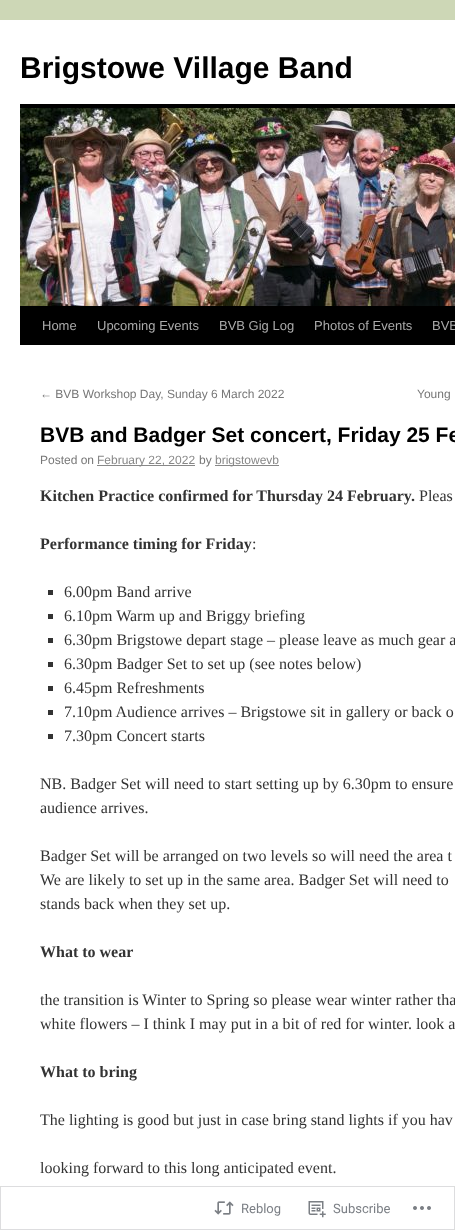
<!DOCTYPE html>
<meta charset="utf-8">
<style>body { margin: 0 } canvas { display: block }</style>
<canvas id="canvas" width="455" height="1230"></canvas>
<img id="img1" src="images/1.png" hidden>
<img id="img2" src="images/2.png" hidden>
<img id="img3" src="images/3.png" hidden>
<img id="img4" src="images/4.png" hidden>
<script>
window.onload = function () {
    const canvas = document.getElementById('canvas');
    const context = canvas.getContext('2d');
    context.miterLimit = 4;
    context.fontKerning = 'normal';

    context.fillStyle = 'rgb(205, 215, 182)';
    context.fillRect(0, 0, 455, 1230);
    context.fillStyle = 'rgb(255, 255, 255)';
    context.fillRect(0, 20, 455, 1166);
    context.fillStyle = 'rgb(0, 0, 0)';
    context.fillRect(20, 104, 435, 4);
    context.fillRect(20, 306, 435, 39);
    context.drawImage(document.getElementById('img1'), 20, 108, 435, 198);
    context.fillStyle = 'rgb(136, 136, 136)';
    context.fillRect(97, 465, 98, 1);
    context.fillRect(215, 465, 64, 1);
    context.fillStyle = 'rgb(51, 51, 51)';
    context.fillRect(48, 590, 5, 5);
    context.fillRect(48, 614, 5, 5);
    context.fillRect(48, 638, 5, 5);
    context.fillRect(48, 662, 5, 5);
    context.fillRect(48, 686, 5, 5);
    context.fillRect(48, 710, 5, 5);
    context.fillRect(48, 734, 5, 5);
    context.fillStyle = 'rgb(255, 255, 255)';
    context.beginPath();
    context.rect(0.5, 1186.5, 454, 43);
    context.fill();
    context.strokeStyle = 'rgb(221, 221, 223)';
    context.stroke();
    context.drawImage(document.getElementById('img2'), 214, 1201, 20, 14);
    context.drawImage(document.getElementById('img3'), 308, 1201, 18, 17);
    context.drawImage(document.getElementById('img4'), 413, 1206, 18, 4);
    context.font = 'bold 30px Liberation Sans';
    context.fillStyle = 'rgb(0, 0, 0)';
    context.fillText('Brigstowe Village Band', 20, 78);
    context.font = '13px Liberation Sans';
    context.fillStyle = 'rgb(170, 170, 170)';
    context.fillText('Home', 42, 330);
    context.fillText('Upcoming Events', 97, 330);
    context.fillText('BVB Gig Log', 219, 330);
    context.fillText('Photos of Events', 314, 330);
    context.fillText('BVB', 432, 330);
    context.font = '12px Liberation Sans';
    context.fillStyle = 'rgb(119, 119, 119)';
    context.fillText('← BVB Workshop Day, Sunday 6 March 2022', 40, 398);
    context.fillText('Young', 417, 398);
    context.font = 'bold 21px Liberation Sans';
    context.fillStyle = 'rgb(0, 0, 0)';
    context.fillText('BVB and Badger Set concert, Friday 25 Fe', 40, 442);
    context.font = '12px Liberation Sans';
    context.fillStyle = 'rgb(119, 119, 119)';
    context.fillText('Posted on', 40, 464);
    context.fillStyle = 'rgb(136, 136, 136)';
    context.fillText('February 22, 2022', 97, 464);
    context.fillStyle = 'rgb(119, 119, 119)';
    context.fillText('by', 199, 464);
    context.fillStyle = 'rgb(136, 136, 136)';
    context.fillText('brigstowevb', 215, 464);
    context.font = 'bold 16px Liberation Serif';
    context.fillStyle = 'rgb(51, 51, 51)';
    context.fillText('Kitchen Practice confirmed for Thursday 24 February.', 40, 501);
    context.font = '16px Liberation Serif';
    context.fillText('Pleas', 419, 501);
    context.font = 'bold 16px Liberation Serif';
    context.fillText('Performance timing for Friday', 40, 549);
    context.font = '16px Liberation Serif';
    context.fillText(':', 252, 549);
    context.fillText('6.00pm Band arrive', 64, 597);
    context.fillText('6.10pm Warm up and Briggy briefing', 64, 621);
    context.fillText('6.30pm Brigstowe depart stage – please leave as much gear a', 64, 645);
    context.fillText('6.30pm Badger Set to set up (see notes below)', 64, 669);
    context.fillText('6.45pm Refreshments', 64, 693);
    context.fillText('7.10pm Audience arrives – Brigstowe sit in gallery or back o', 64, 717);
    context.fillText('7.30pm Concert starts', 64, 741);
    context.fillText('NB. Badger Set will need to start setting up by 6.30pm to ensure', 40, 789);
    context.fillText('audience arrives.', 40, 813);
    context.fillText('Badger Set will be arranged on two levels so will need the area t', 40, 861);
    context.fillText('We are likely to set up in the same area. Badger Set will need to', 40, 885);
    context.fillText('stands back when they set up.', 40, 909);
    context.font = 'bold 16px Liberation Serif';
    context.fillText('What to wear', 40, 957);
    context.font = '16px Liberation Serif';
    context.fillText('the transition is Winter to Spring so please wear winter rather tha', 40, 1005);
    context.fillText('white flowers – I think I may put in a bit of red for winter. look a', 40, 1029);
    context.font = 'bold 16px Liberation Serif';
    context.fillText('What to bring', 40, 1077);
    context.font = '16px Liberation Serif';
    context.fillText('The lighting is good but just in case bring stand lights if you hav', 40, 1125);
    context.fillText('looking forward to this long anticipated event.', 40, 1173);
    context.font = '13px Roboto';
    context.fillStyle = 'rgb(123, 127, 133)';
    context.fillText('Reblog', 241, 1213);
    context.fillText('Subscribe', 333, 1213);
};
</script>
